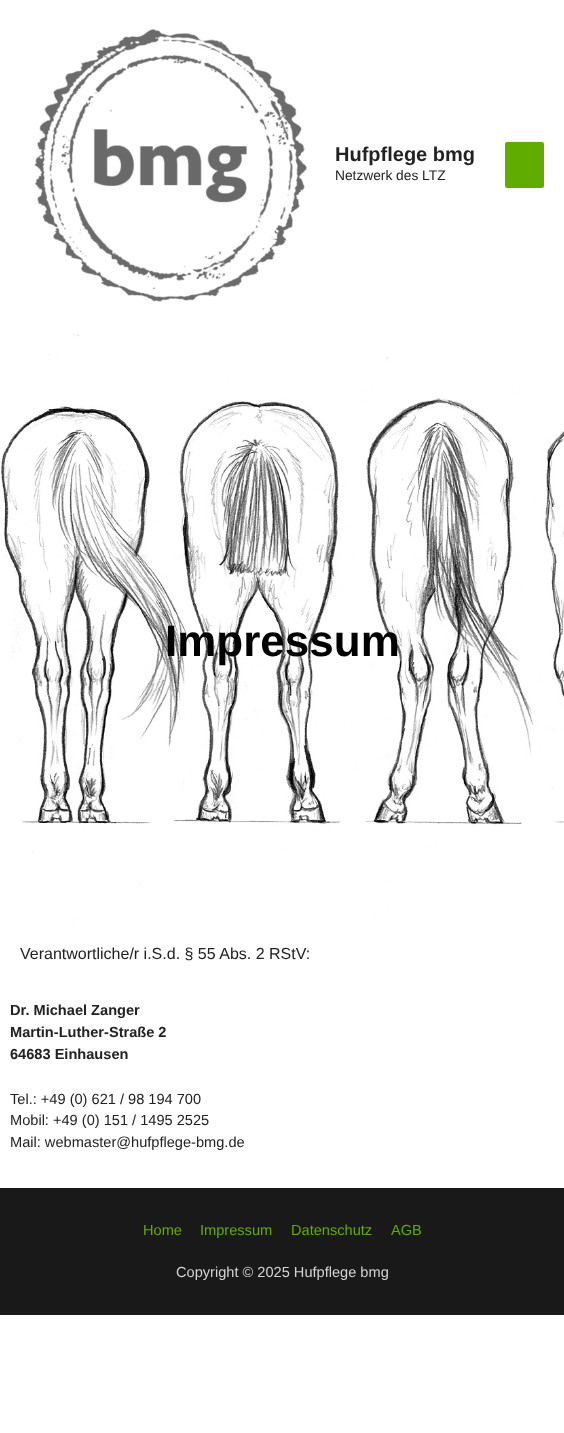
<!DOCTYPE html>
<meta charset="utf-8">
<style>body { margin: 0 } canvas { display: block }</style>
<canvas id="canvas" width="564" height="1433"></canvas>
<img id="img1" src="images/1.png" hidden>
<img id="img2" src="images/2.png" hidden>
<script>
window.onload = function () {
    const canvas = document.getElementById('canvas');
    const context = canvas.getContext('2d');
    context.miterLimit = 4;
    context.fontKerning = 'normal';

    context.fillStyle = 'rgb(255, 255, 255)';
    context.fillRect(0, 0, 564, 1433);
    context.drawImage(document.getElementById('img1'), 34, 29, 273, 273);
    context.fillStyle = 'rgb(97, 172, 1)';
    context.beginPath();
    context.roundRect(505, 142, 39, 46, 2);
    context.fill();
    context.drawImage(document.getElementById('img2'), 1, 334, 563, 587);
    context.fillStyle = 'rgb(25, 25, 25)';
    context.fillRect(0, 1188, 564, 127);
    context.font = 'bold 20px Liberation Sans';
    context.fillStyle = 'rgb(34, 34, 34)';
    context.fillText('Hufpflege bmg', 335, 161);
    context.font = '13.75px Liberation Sans';
    context.fillText('Netzwerk des LTZ', 335, 180);
    context.font = 'bold 44px Liberation Sans';
    context.fillStyle = 'rgb(0, 0, 0)';
    context.fillText('Impressum', 165, 656);
    context.font = '16px Liberation Sans';
    context.fillStyle = 'rgb(34, 34, 34)';
    context.fillText('Verantwortliche/r i.S.d. § 55 Abs. 2 RStV:', 20, 959);
    context.font = 'bold 14.6px Liberation Sans';
    context.fillText('Dr. Michael Zanger', 10, 1015);
    context.fillText('Martin-Luther-Straße 2', 10, 1037);
    context.fillText('64683 Einhausen', 10, 1059);
    context.font = '14.6px Liberation Sans';
    context.fillText('Tel.: +49 (0) 621 / 98 194 700', 10, 1104);
    context.fillText('Mobil: +49 (0) 151 / 1495 2525', 10, 1125);
    context.fillText('Mail: webmaster@hufpflege-bmg.de', 10, 1147);
    context.fillStyle = 'rgb(97, 172, 1)';
    context.fillText('Home', 143, 1235);
    context.fillText('Impressum', 200, 1235);
    context.fillText('Datenschutz', 291, 1235);
    context.fillText('AGB', 391, 1235);
    context.fillStyle = 'rgb(211, 211, 211)';
    context.fillText('Copyright © 2025 Hufpflege bmg', 176, 1277);
};
</script>
